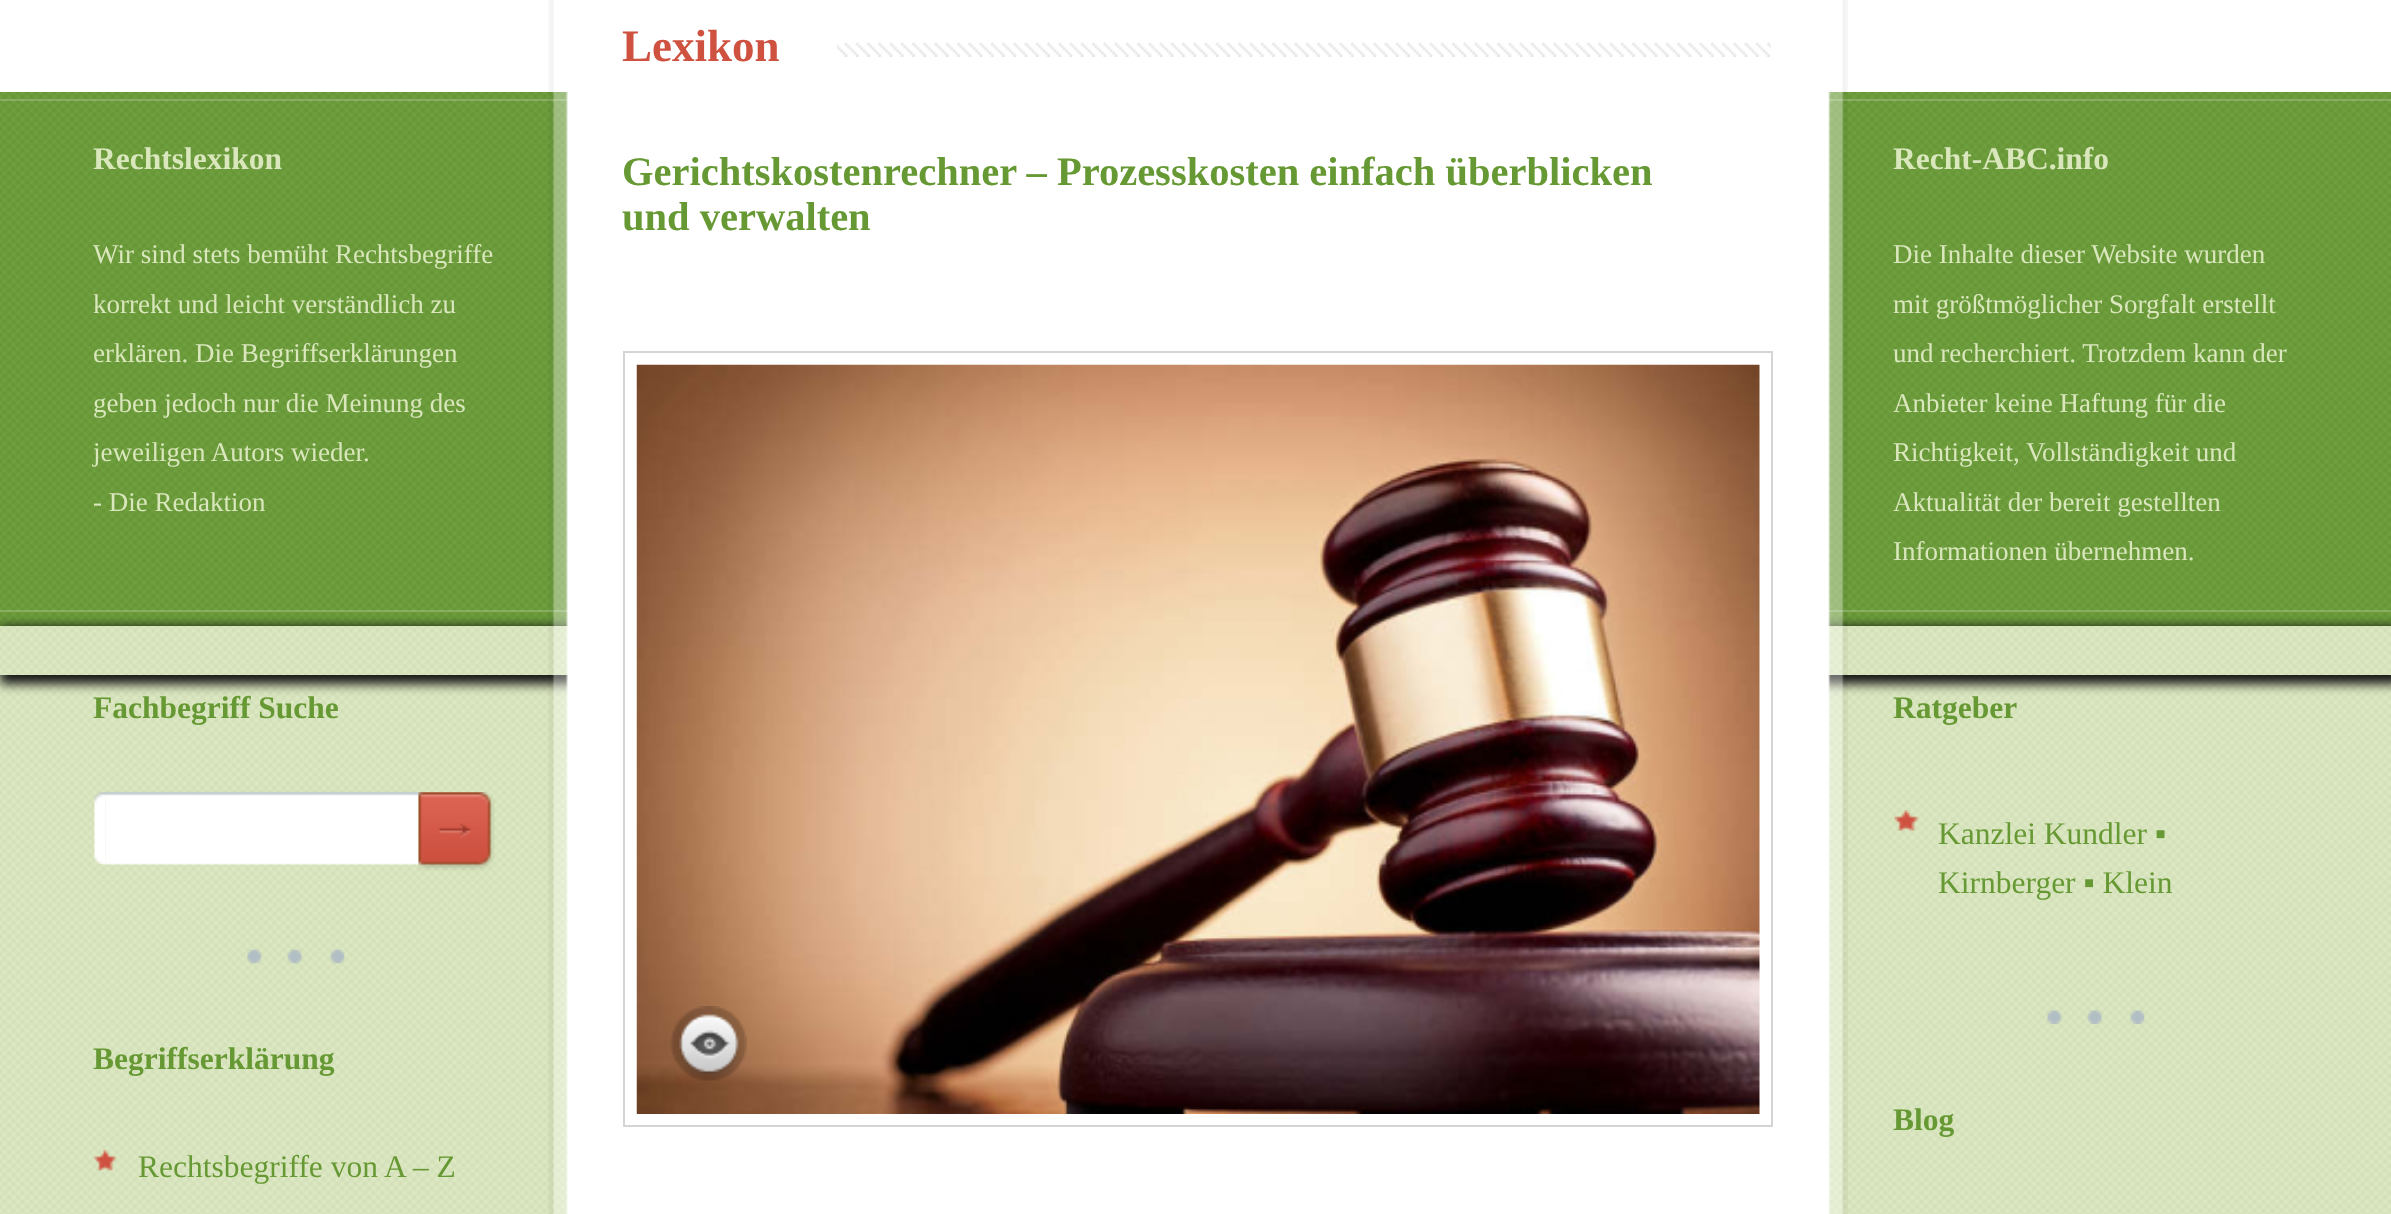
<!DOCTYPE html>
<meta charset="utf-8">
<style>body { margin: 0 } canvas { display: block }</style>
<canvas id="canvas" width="2391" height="1214"></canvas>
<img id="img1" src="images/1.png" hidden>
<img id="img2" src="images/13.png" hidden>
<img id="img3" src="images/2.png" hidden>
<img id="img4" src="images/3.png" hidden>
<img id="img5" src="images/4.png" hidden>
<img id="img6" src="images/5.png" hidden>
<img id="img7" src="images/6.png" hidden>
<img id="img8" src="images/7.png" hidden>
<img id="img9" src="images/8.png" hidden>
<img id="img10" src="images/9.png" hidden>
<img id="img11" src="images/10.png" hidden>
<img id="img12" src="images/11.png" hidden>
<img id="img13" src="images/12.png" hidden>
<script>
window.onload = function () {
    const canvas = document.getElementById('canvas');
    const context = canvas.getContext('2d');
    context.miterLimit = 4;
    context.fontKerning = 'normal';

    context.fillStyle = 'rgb(218, 231, 189)';
    context.fillRect(0, 0, 2391, 1214);
    context.drawImage(document.getElementById('img1'), 0, 626, 2391, 588);
    context.fillStyle = 'rgb(255, 255, 255)';
    context.fillRect(0, 0, 2391, 92);
    context.fillStyle = 'rgb(102, 153, 51)';
    context.fillRect(0, 92, 2391, 534);
    context.drawImage(document.getElementById('img2'), 0, 92, 2391, 534);
    context.fillStyle = 'rgba(255, 255, 255, 0.2)';
    context.fillRect(0, 99, 2391, 2);
    context.save();
    context.beginPath();
    context.moveTo(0, 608);
    context.lineTo(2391, 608);
    context.lineTo(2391, 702);
    context.lineTo(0, 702);
    context.closePath();
    context.moveTo(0, 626);
    context.lineTo(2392, 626);
    context.lineTo(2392, 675);
    context.lineTo(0, 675);
    context.closePath();
    context.clip('evenodd');
    context.fillStyle = 'rgb(22, 22, 22)';
    context.filter = 'blur(5.5px)';
    context.beginPath();
    context.rect(0, 626, 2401, 58);
    context.fill();
    context.filter = 'none';
    context.restore();
    context.fillRect(0, 610, 2391, 2);
    context.drawImage(document.getElementById('img3'), 548, 0, 1300, 1214);
    context.drawImage(document.getElementById('img4'), 837, 42, 934, 15);
    context.strokeStyle = 'rgb(212, 212, 212)';
    context.lineWidth = 2;
    context.strokeRect(624, 352, 1148, 774);
    context.drawImage(document.getElementById('img5'), 636, 364, 1124, 750);
    context.drawImage(document.getElementById('img6'), 670, 1006, 77, 75);
    context.drawImage(document.getElementById('img7'), 94, 792, 12, 73);
    context.drawImage(document.getElementById('img8'), 105, 791, 314, 74);
    context.drawImage(document.getElementById('img9'), 418, 792, 77, 79);
    context.drawImage(document.getElementById('img10'), 247, 949, 98, 15);
    context.drawImage(document.getElementById('img11'), 94, 1150, 23, 21);
    context.drawImage(document.getElementById('img12'), 1894, 810, 26, 21);
    context.drawImage(document.getElementById('img13'), 2047, 1010, 98, 14);
    context.font = 'bold 45px Liberation Serif';
    context.fillStyle = 'rgb(207, 82, 65)';
    context.fillText('Lexikon', 622, 61);
    context.font = 'bold 40.5px Liberation Serif';
    context.fillStyle = 'rgb(102, 153, 51)';
    context.fillText('Gerichtskostenrechner – Prozesskosten einfach überblicken', 622, 185);
    context.fillText('und verwalten', 622, 230);
    context.font = 'bold 31.5px Liberation Serif';
    context.fillText('Fachbegriff Suche', 93, 718);
    context.fillText('Begriffserklärung', 93, 1069);
    context.font = '31.5px Liberation Serif';
    context.fillText('Rechtsbegriffe von A – Z', 138, 1177);
    context.font = 'bold 31.5px Liberation Serif';
    context.fillText('Ratgeber', 1893, 718);
    context.font = '31.5px Liberation Serif';
    context.fillText('Kanzlei Kundler ▪', 1938, 844);
    context.fillText('Kirnberger ▪ Klein', 1938, 893);
    context.font = 'bold 31.5px Liberation Serif';
    context.fillText('Blog', 1893, 1130);
    context.fillStyle = 'rgb(218, 231, 189)';
    context.fillText('Rechtslexikon', 93, 169);
    context.font = '27px Liberation Serif';
    context.fillText('Wir sind stets bemüht Rechtsbegriffe', 93, 263);
    context.fillText('korrekt und leicht verständlich zu', 93, 313);
    context.fillText('erklären. Die Begriffserklärungen', 93, 362);
    context.fillText('geben jedoch nur die Meinung des', 93, 412);
    context.fillText('jeweiligen Autors wieder.', 93, 461);
    context.fillText('- Die Redaktion', 93, 511);
    context.font = 'bold 31.5px Liberation Serif';
    context.fillText('Recht-ABC.info', 1893, 169);
    context.font = '27px Liberation Serif';
    context.fillText('Die Inhalte dieser Website wurden', 1893, 263);
    context.fillText('mit größtmöglicher Sorgfalt erstellt', 1893, 313);
    context.fillText('und recherchiert. Trotzdem kann der', 1893, 362);
    context.fillText('Anbieter keine Haftung für die', 1893, 412);
    context.fillText('Richtigkeit, Vollständigkeit und', 1893, 461);
    context.fillText('Aktualität der bereit gestellten', 1893, 511);
    context.fillText('Informationen übernehmen.', 1893, 560);
};
</script>
